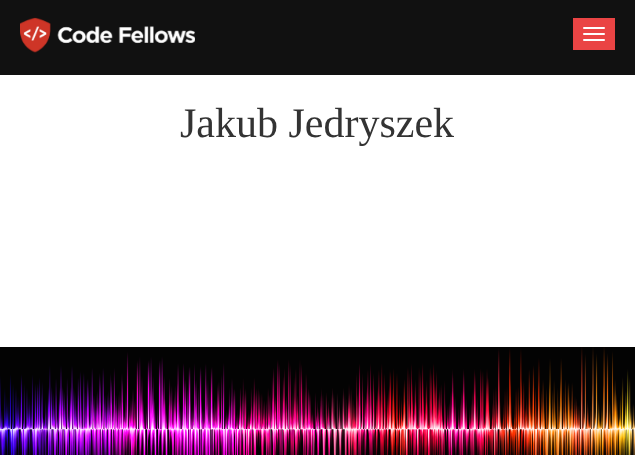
<!DOCTYPE html>
<meta charset="utf-8">
<style>body { margin: 0 } canvas { display: block }</style>
<canvas id="canvas" width="635" height="455"></canvas>
<img id="img1" src="images/1.png" hidden>
<img id="img2" src="images/2.png" hidden>
<script>
window.onload = function () {
    const canvas = document.getElementById('canvas');
    const context = canvas.getContext('2d');
    context.miterLimit = 4;
    context.fontKerning = 'normal';

    context.fillStyle = 'rgb(255, 255, 255)';
    context.fillRect(0, 0, 635, 455);
    context.fillStyle = 'rgb(17, 17, 17)';
    context.fillRect(0, 0, 635, 75);
    context.drawImage(document.getElementById('img1'), 20, 17, 175, 36);
    context.fillStyle = 'rgb(234, 68, 68)';
    context.fillRect(573, 18, 42, 32);
    context.fillStyle = 'rgb(255, 255, 255)';
    context.beginPath();
    context.roundRect(583, 27, 22, 2, 1);
    context.fill();
    context.beginPath();
    context.roundRect(583, 33, 22, 2, 1);
    context.fill();
    context.beginPath();
    context.roundRect(583, 39, 22, 2, 1);
    context.fill();
    context.drawImage(document.getElementById('img2'), 0, 347, 635, 108);
    context.font = '42px Liberation Serif';
    context.fillStyle = 'rgb(51, 51, 51)';
    context.fillText('Jakub Jedryszek', 180, 137);
};
</script>
